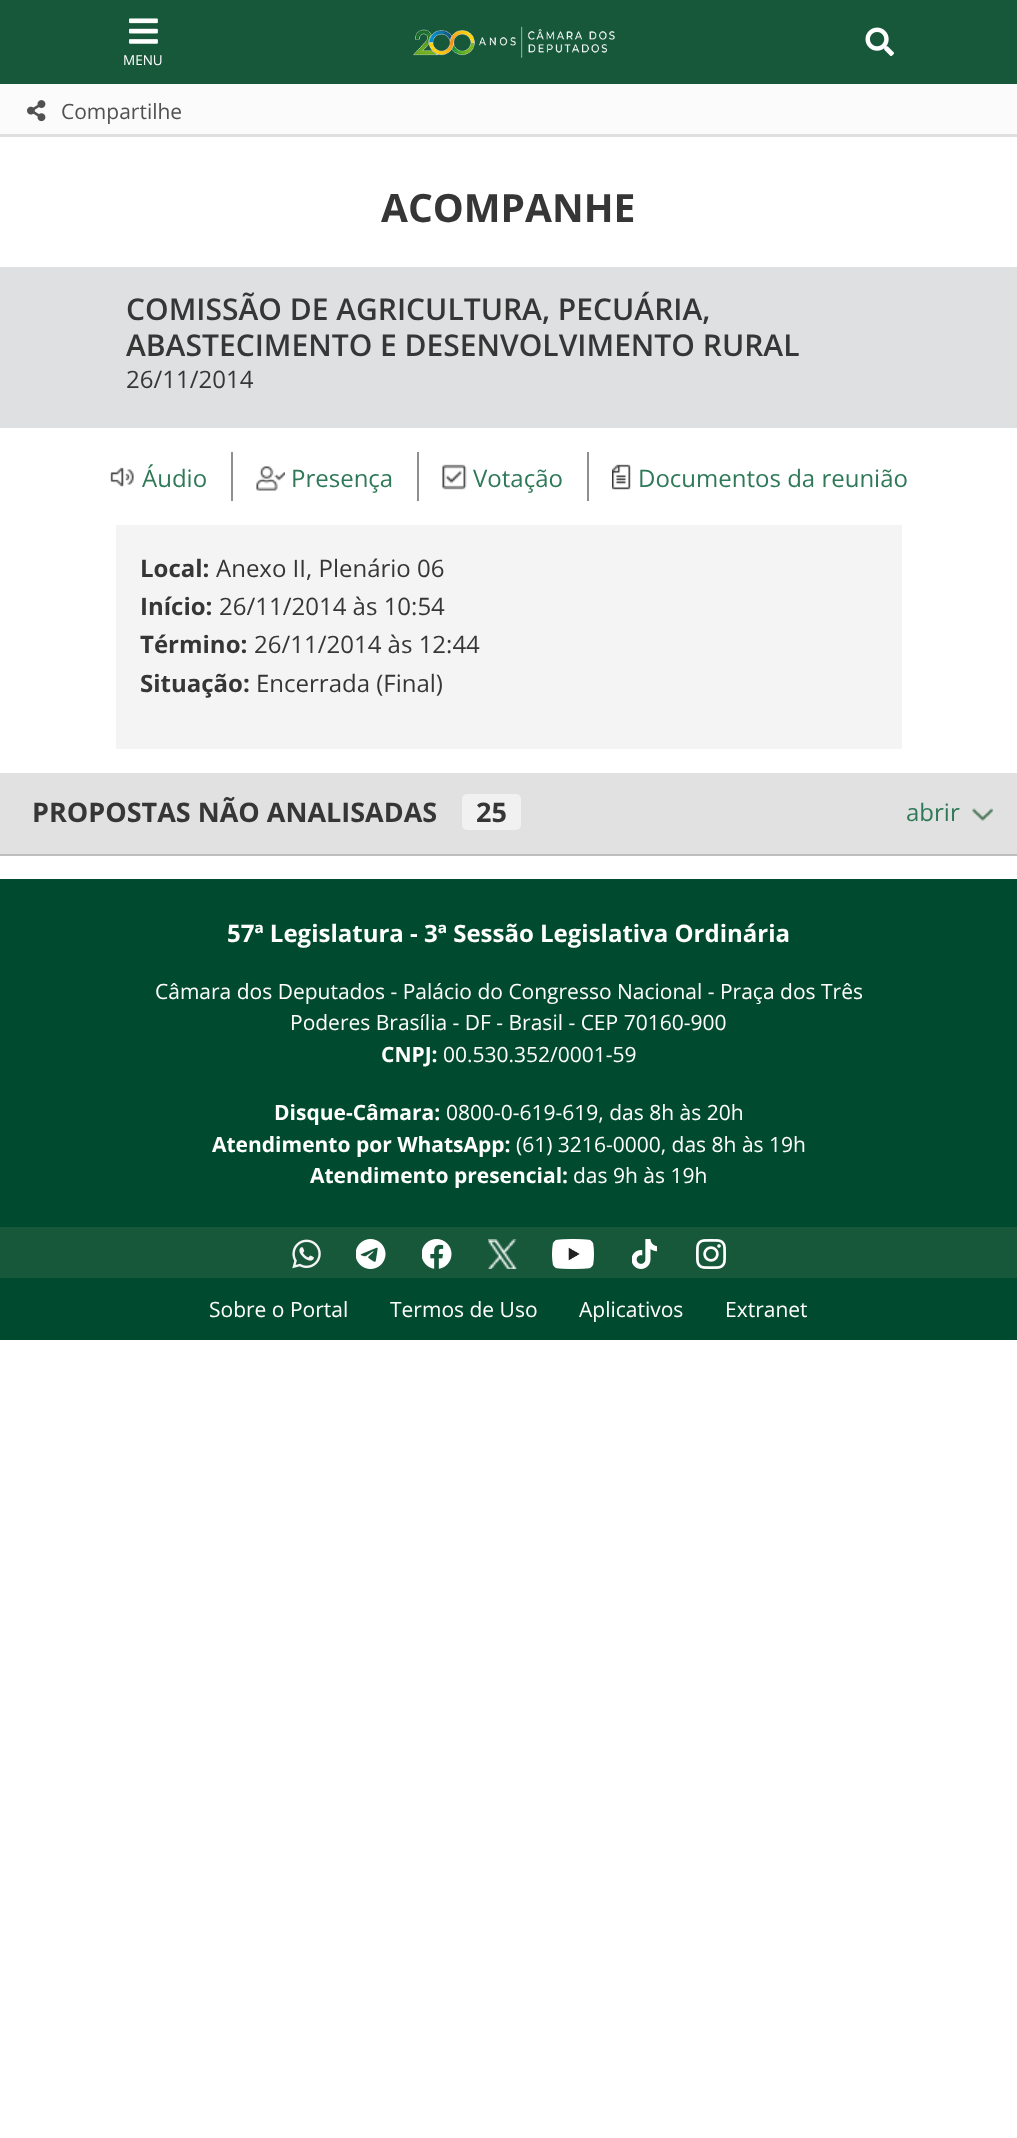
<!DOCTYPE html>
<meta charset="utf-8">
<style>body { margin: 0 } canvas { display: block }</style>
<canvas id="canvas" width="1017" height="2138"></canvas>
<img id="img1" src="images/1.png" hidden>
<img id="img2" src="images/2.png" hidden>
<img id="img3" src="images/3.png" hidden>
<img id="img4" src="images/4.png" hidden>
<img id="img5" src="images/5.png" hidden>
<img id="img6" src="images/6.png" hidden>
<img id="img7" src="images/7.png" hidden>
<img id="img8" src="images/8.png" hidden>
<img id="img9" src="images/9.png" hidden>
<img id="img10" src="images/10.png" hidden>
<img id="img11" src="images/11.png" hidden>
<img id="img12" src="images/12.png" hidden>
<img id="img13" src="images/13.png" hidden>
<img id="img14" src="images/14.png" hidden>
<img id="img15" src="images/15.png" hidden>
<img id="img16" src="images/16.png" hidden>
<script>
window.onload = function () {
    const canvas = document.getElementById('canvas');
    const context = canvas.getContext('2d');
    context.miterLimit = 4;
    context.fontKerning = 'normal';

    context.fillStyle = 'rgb(255, 255, 255)';
    context.fillRect(0, 0, 1017, 2138);
    context.fillStyle = 'rgb(23, 88, 59)';
    context.fillRect(0, 0, 1017, 84);
    context.drawImage(document.getElementById('img1'), 413, 26, 202, 32);
    context.drawImage(document.getElementById('img2'), 865, 27, 29, 29);
    context.drawImage(document.getElementById('img3'), 129, 18, 29, 26);
    context.fillStyle = 'rgb(251, 251, 251)';
    context.fillRect(0, 84, 1017, 50);
    context.fillStyle = 'rgb(223, 223, 223)';
    context.fillRect(0, 134, 1017, 3);
    context.drawImage(document.getElementById('img4'), 27, 100, 19, 22);
    context.fillStyle = 'rgb(223, 224, 225)';
    context.fillRect(0, 267, 1017, 161);
    context.fillStyle = 'rgb(143, 143, 143)';
    context.fillRect(231, 452, 2, 49);
    context.drawImage(document.getElementById('img5'), 110, 467, 24, 20);
    context.fillRect(417, 452, 2, 49);
    context.drawImage(document.getElementById('img6'), 256, 466, 29, 25);
    context.fillRect(587, 452, 2, 49);
    context.drawImage(document.getElementById('img7'), 442, 464, 25, 26);
    context.drawImage(document.getElementById('img8'), 612, 464, 19, 26);
    context.fillStyle = 'rgb(244, 244, 244)';
    context.fillRect(116, 525, 786, 224);
    context.fillStyle = 'rgb(225, 225, 225)';
    context.fillRect(0, 773, 1017, 81);
    context.fillStyle = 'rgb(189, 189, 189)';
    context.fillRect(0, 854, 1017, 2);
    context.fillStyle = 'rgb(241, 241, 241)';
    context.beginPath();
    context.roundRect(462, 794, 59, 36, 5);
    context.fill();
    context.drawImage(document.getElementById('img9'), 972, 808, 21, 13);
    context.fillStyle = 'rgb(0, 74, 47)';
    context.fillRect(0, 879, 1017, 348);
    context.fillStyle = 'rgb(23, 88, 59)';
    context.fillRect(0, 1227, 1017, 51);
    context.drawImage(document.getElementById('img10'), 292, 1239, 29, 30);
    context.drawImage(document.getElementById('img11'), 356, 1239, 30, 30);
    context.drawImage(document.getElementById('img12'), 422, 1239, 30, 30);
    context.drawImage(document.getElementById('img13'), 488, 1239, 29, 30);
    context.drawImage(document.getElementById('img14'), 552, 1239, 42, 30);
    context.drawImage(document.getElementById('img15'), 632, 1239, 25, 30);
    context.drawImage(document.getElementById('img16'), 696, 1239, 30, 30);
    context.fillStyle = 'rgb(0, 74, 47)';
    context.fillRect(0, 1278, 1017, 62);
    context.font = '13.5px Open Sans';
    context.fillStyle = 'rgb(255, 255, 255)';
    context.fillText('MENU', 123, 65);
    context.font = '21px Open Sans';
    context.fillStyle = 'rgb(81, 81, 81)';
    context.fillText('Compartilhe', 61, 119);
    context.font = 'bold 39px Open Sans';
    context.fillStyle = 'rgb(54, 54, 54)';
    context.fillText('ACOMPANHE', 381, 222);
    context.font = '600 30px Open Sans';
    context.fillText('COMISSÃO DE AGRICULTURA, PECUÁRIA,', 126, 320);
    context.fillText('ABASTECIMENTO E DESENVOLVIMENTO RURAL', 126, 356);
    context.font = '24px Open Sans';
    context.fillText('26/11/2014', 126, 388);
    context.fillStyle = 'rgb(47, 121, 88)';
    context.fillText('Áudio', 142, 487);
    context.fillText('Presença', 291, 487);
    context.fillText('Votação', 473, 487);
    context.fillText('Documentos da reunião', 638, 487);
    context.font = 'bold 24px Open Sans';
    context.fillStyle = 'rgb(54, 54, 54)';
    context.fillText('Local:', 140, 577);
    context.font = '24px Open Sans';
    context.fillText('Anexo II, Plenário 06', 216, 577);
    context.font = 'bold 24px Open Sans';
    context.fillText('Início:', 140, 615);
    context.font = '24px Open Sans';
    context.fillText('26/11/2014 às 10:54', 219, 615);
    context.font = 'bold 24px Open Sans';
    context.fillText('Término:', 140, 653);
    context.font = '24px Open Sans';
    context.fillText('26/11/2014 às 12:44', 254, 653);
    context.font = 'bold 24px Open Sans';
    context.fillText('Situação:', 140, 692);
    context.font = '24px Open Sans';
    context.fillText('Encerrada (Final)', 256, 692);
    context.font = 'bold 27px Open Sans';
    context.fillText('PROPOSTAS NÃO ANALISADAS', 32, 822);
    context.fillText('25', 476, 822);
    context.font = '24px Open Sans';
    context.fillStyle = 'rgb(47, 121, 88)';
    context.fillText('abrir', 906, 821);
    context.font = 'bold 24px Open Sans';
    context.fillStyle = 'rgb(255, 255, 255)';
    context.fillText('57ª Legislatura - 3ª Sessão Legislativa Ordinária', 227, 942);
    context.font = '21px Open Sans';
    context.fillText('Câmara dos Deputados - Palácio do Congresso Nacional - Praça dos Três', 155, 999);
    context.fillText('Poderes Brasília - DF - Brasil - CEP 70160-900', 290, 1030);
    context.font = 'bold 21px Open Sans';
    context.fillText('CNPJ:', 381, 1062);
    context.font = '21px Open Sans';
    context.fillText('00.530.352/0001-59', 443, 1062);
    context.font = 'bold 21px Open Sans';
    context.fillText('Disque-Câmara:', 274, 1120);
    context.font = '21px Open Sans';
    context.fillText('0800-0-619-619, das 8h às 20h', 446, 1120);
    context.font = 'bold 21px Open Sans';
    context.fillText('Atendimento por WhatsApp:', 212, 1152);
    context.font = '21px Open Sans';
    context.fillText('(61) 3216-0000, das 8h às 19h', 516, 1152);
    context.font = 'bold 21px Open Sans';
    context.fillText('Atendimento presencial:', 310, 1183);
    context.font = '21px Open Sans';
    context.fillText('das 9h às 19h', 573, 1183);
    context.fillText('Sobre o Portal', 209, 1317);
    context.fillText('Termos de Uso', 390, 1317);
    context.fillText('Aplicativos', 579, 1317);
    context.fillText('Extranet', 725, 1317);
};
</script>
